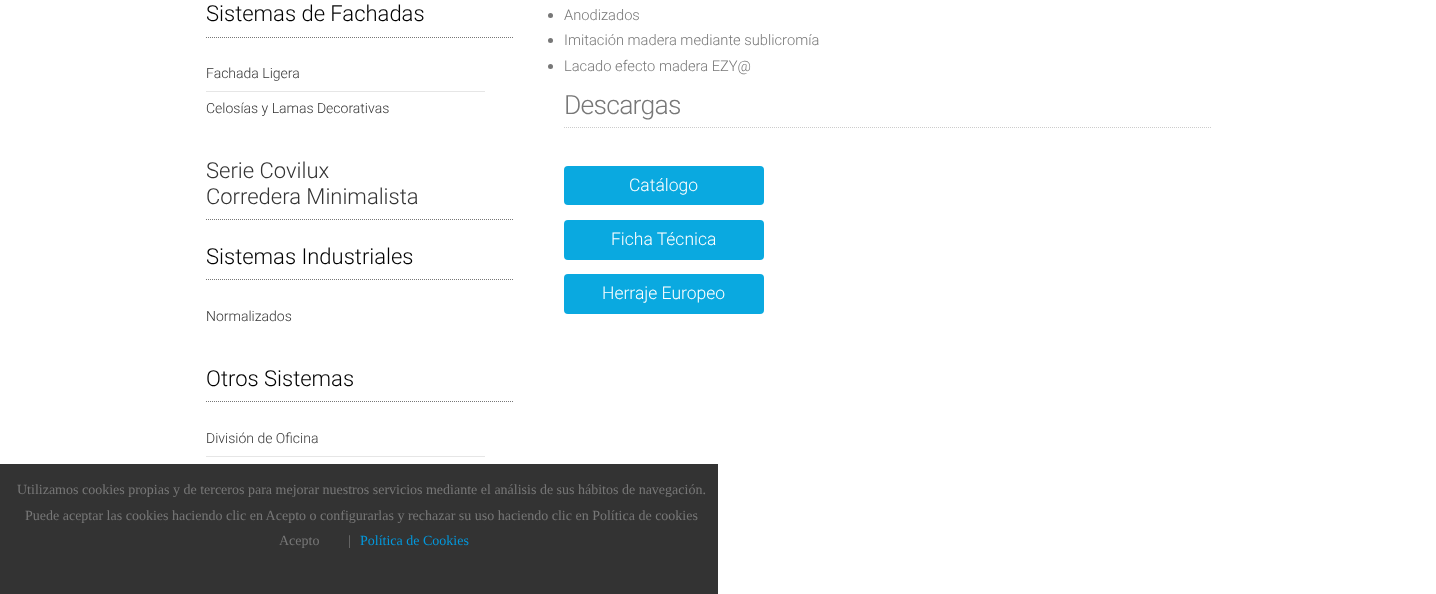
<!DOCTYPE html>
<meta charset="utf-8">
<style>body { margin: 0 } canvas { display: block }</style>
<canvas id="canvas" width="1436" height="594"></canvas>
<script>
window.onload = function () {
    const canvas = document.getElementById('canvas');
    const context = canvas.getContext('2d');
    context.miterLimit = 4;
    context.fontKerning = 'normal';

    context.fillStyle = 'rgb(255, 255, 255)';
    context.fillRect(0, 0, 1436, 594);
    context.beginPath();
    context.moveTo(206, 37.5);
    context.lineTo(514, 37.5);
    context.strokeStyle = 'rgb(119, 119, 119)';
    context.setLineDash([1, 1]);
    context.stroke();
    context.fillStyle = 'rgb(230, 230, 230)';
    context.fillRect(206, 91, 279, 1);
    context.beginPath();
    context.moveTo(206, 219.5);
    context.lineTo(514, 219.5);
    context.stroke();
    context.beginPath();
    context.moveTo(206, 279.5);
    context.lineTo(514, 279.5);
    context.stroke();
    context.beginPath();
    context.moveTo(206, 401.5);
    context.lineTo(514, 401.5);
    context.stroke();
    context.fillRect(206, 456, 279, 1);
    context.fillStyle = 'rgb(119, 119, 119)';
    context.beginPath();
    context.arc(550.5, 15.5, 2.5, 0, 2 * Math.PI);
    context.fill();
    context.beginPath();
    context.arc(550.5, 40.5, 2.5, 0, 2 * Math.PI);
    context.fill();
    context.beginPath();
    context.arc(550.5, 66.5, 2.5, 0, 2 * Math.PI);
    context.fill();
    context.beginPath();
    context.moveTo(564, 127.5);
    context.lineTo(1212, 127.5);
    context.strokeStyle = 'rgb(204, 204, 204)';
    context.stroke();
    context.fillStyle = 'rgb(10, 169, 224)';
    context.beginPath();
    context.roundRect(564, 166, 200, 39, 4);
    context.fill();
    context.beginPath();
    context.roundRect(564, 220, 200, 40, 4);
    context.fill();
    context.beginPath();
    context.roundRect(564, 274, 200, 40, 4);
    context.fill();
    context.fillStyle = 'rgb(51, 51, 51)';
    context.fillRect(0, 464, 718, 130);
    context.font = '300 22px Roboto';
    context.fillStyle = 'rgb(0, 0, 0)';
    context.fillText('Sistemas de Fachadas', 206, 21);
    context.font = '300 14px Roboto';
    context.fillStyle = 'rgb(51, 51, 51)';
    context.fillText('Fachada Ligera', 206, 78);
    context.fillText('Celosías y Lamas Decorativas', 206, 113);
    context.font = '300 22px Roboto';
    context.fillText('Serie Covilux', 206, 178);
    context.fillText('Corredera Minimalista', 206, 204);
    context.fillStyle = 'rgb(0, 0, 0)';
    context.fillText('Sistemas Industriales', 206, 264);
    context.font = '300 14px Roboto';
    context.fillStyle = 'rgb(51, 51, 51)';
    context.fillText('Normalizados', 206, 321);
    context.font = '300 22px Roboto';
    context.fillStyle = 'rgb(0, 0, 0)';
    context.fillText('Otros Sistemas', 206, 386);
    context.font = '300 14px Roboto';
    context.fillStyle = 'rgb(51, 51, 51)';
    context.fillText('División de Oficina', 206, 443);
    context.font = '300 14.7px Roboto';
    context.fillStyle = 'rgb(119, 119, 119)';
    context.fillText('Anodizados', 564, 20);
    context.fillText('Imitación madera mediante sublicromía', 564, 45);
    context.fillText('Lacado efecto madera EZY@', 564, 71);
    context.letterSpacing = '-0.75px';
    context.font = '300 26.5px Roboto';
    context.fillText('Descargas', 564, 114);
    context.letterSpacing = '0px';
    context.font = '300 17.5px Roboto';
    context.fillStyle = 'rgb(255, 255, 255)';
    context.fillText('Catálogo', 629, 191);
    context.fillText('Ficha Técnica', 611, 245);
    context.fillText('Herraje Europeo', 602, 299);
    context.font = '14px Liberation Serif';
    context.fillStyle = 'rgb(119, 119, 119)';
    context.fillText('Utilizamos cookies propias y de terceros para mejorar nuestros servicios mediante el análisis de sus hábitos de navegación.', 17, 494);
    context.fillText('Puede aceptar las cookies haciendo clic en Acepto o configurarlas y rechazar su uso haciendo clic en Política de cookies', 25, 520);
    context.fillText('Acepto', 279, 545);
    context.fillText('|', 348, 545);
    context.fillStyle = 'rgb(3, 152, 220)';
    context.fillText('Política de Cookies', 360, 545);
};
</script>
